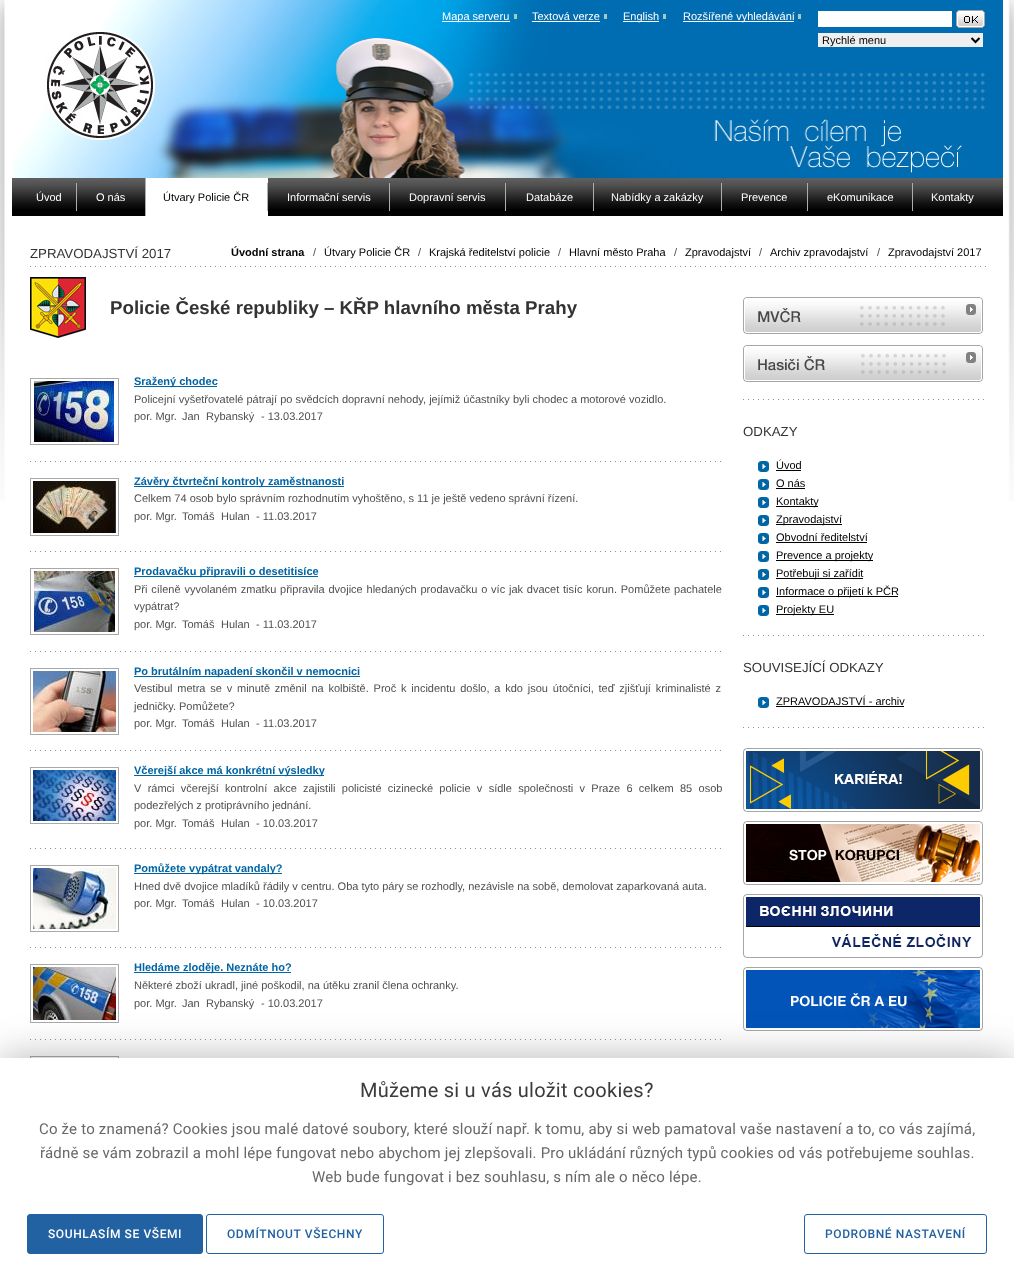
<!DOCTYPE html>
<meta charset="utf-8">
<style>body { margin: 0 } canvas { display: block }</style>
<canvas id="canvas" width="1014" height="1274"></canvas>
<img id="img1" src="images/1.png" hidden>
<img id="img2" src="images/2.png" hidden>
<img id="img3" src="images/3.png" hidden>
<img id="img4" src="images/4.png" hidden>
<img id="img5" src="images/5.png" hidden>
<img id="img6" src="images/6.png" hidden>
<img id="img7" src="images/7.png" hidden>
<img id="img8" src="images/8.png" hidden>
<img id="img9" src="images/9.png" hidden>
<img id="img10" src="images/10.png" hidden>
<img id="img11" src="images/11.png" hidden>
<img id="img12" src="images/12.png" hidden>
<img id="img13" src="images/13.png" hidden>
<img id="img14" src="images/14.png" hidden>
<img id="img15" src="images/15.png" hidden>
<img id="img16" src="images/16.png" hidden>
<img id="img17" src="images/17.png" hidden>
<img id="img18" src="images/18.png" hidden>
<img id="img19" src="images/19.png" hidden>
<img id="img20" src="images/20.png" hidden>
<img id="img21" src="images/21.png" hidden>
<img id="img22" src="images/22.png" hidden>
<img id="img23" src="images/23.png" hidden>
<script>
window.onload = function () {
    const canvas = document.getElementById('canvas');
    const context = canvas.getContext('2d');
    context.miterLimit = 4;
    context.fontKerning = 'normal';

    context.fillStyle = 'rgb(255, 255, 255)';
    context.fillRect(0, 0, 1014, 1274);
    context.drawImage(document.getElementById('img1'), 0, 0, 1014, 501);
    context.fillStyle = 'rgb(0, 109, 178)';
    context.fillRect(989, 0, 14, 178);
    context.drawImage(document.getElementById('img2'), 12, 0, 977, 178);
    context.fillStyle = 'rgb(166, 202, 184)';
    context.fillRect(514, 14, 3, 5);
    context.fillStyle = 'rgb(255, 255, 255)';
    context.fillRect(442, 21, 68, 1);
    context.fillStyle = 'rgb(166, 202, 184)';
    context.fillRect(604, 14, 3, 5);
    context.fillStyle = 'rgb(255, 255, 255)';
    context.fillRect(532, 21, 68, 1);
    context.fillStyle = 'rgb(166, 202, 184)';
    context.fillRect(663, 14, 3, 5);
    context.fillStyle = 'rgb(255, 255, 255)';
    context.fillRect(623, 21, 36, 1);
    context.fillStyle = 'rgb(166, 202, 184)';
    context.fillRect(798, 14, 3, 5);
    context.fillStyle = 'rgb(255, 255, 255)';
    context.fillRect(683, 21, 111, 1);
    context.drawImage(document.getElementById('img3'), 44, 30, 151, 137);
    context.fillRect(818, 11, 134, 16);
    context.drawImage(document.getElementById('img4'), 956, 10, 29, 18);
    context.fillStyle = 'rgb(239, 239, 239)';
    context.fillRect(818, 33, 165, 14);
    context.beginPath();
    context.moveTo(971.5, 38);
    context.lineTo(975.5, 42);
    context.lineTo(979.5, 38);
    context.strokeStyle = 'rgb(0, 0, 0)';
    context.lineWidth = 2;
    context.stroke();
    context.fillStyle = 'rgb(1, 1, 1)';
    context.fillRect(12, 209, 991, 7);
    context.drawImage(document.getElementById('img5'), 12, 178, 991, 31);
    context.fillStyle = 'rgb(173, 173, 173)';
    context.fillRect(76, 183, 1, 28);
    context.fillStyle = 'rgb(255, 255, 255)';
    context.fillRect(146, 178, 122, 38);
    context.fillStyle = 'rgb(173, 173, 173)';
    context.fillRect(145, 178, 1, 38);
    context.fillRect(267, 183, 1, 28);
    context.fillRect(389, 183, 1, 28);
    context.fillRect(505, 183, 1, 28);
    context.fillRect(593, 183, 1, 28);
    context.fillRect(721, 183, 1, 28);
    context.fillRect(807, 183, 1, 28);
    context.fillRect(912, 183, 1, 28);
    context.drawImage(document.getElementById('img6'), 30, 266, 956, 1);
    context.drawImage(document.getElementById('img7'), 30, 277, 56, 61);
    context.drawImage(document.getElementById('img8'), 30, 461, 691, 1);
    context.strokeStyle = 'rgb(169, 169, 169)';
    context.lineWidth = 1;
    context.strokeRect(30.5, 378.5, 88, 66);
    context.drawImage(document.getElementById('img9'), 34, 381, 80, 61);
    context.fillStyle = 'rgb(0, 101, 164)';
    context.fillRect(134, 386, 83, 1);
    context.drawImage(document.getElementById('img8'), 30, 551, 691, 1);
    context.strokeRect(30.5, 478.5, 88, 57);
    context.drawImage(document.getElementById('img10'), 33, 481, 83, 52);
    context.fillRect(134, 486, 210, 1);
    context.drawImage(document.getElementById('img8'), 30, 651, 691, 1);
    context.strokeRect(30.5, 568.5, 88, 66);
    context.drawImage(document.getElementById('img11'), 34, 571, 81, 61);
    context.fillRect(134, 576, 184, 1);
    context.drawImage(document.getElementById('img8'), 30, 750, 691, 1);
    context.strokeRect(30.5, 668.5, 88, 66);
    context.drawImage(document.getElementById('img12'), 33, 671, 83, 61);
    context.fillRect(134, 676, 226, 1);
    context.drawImage(document.getElementById('img8'), 30, 848, 691, 1);
    context.strokeRect(30.5, 767.5, 88, 56);
    context.drawImage(document.getElementById('img13'), 33, 770, 83, 51);
    context.fillRect(134, 775, 190, 1);
    context.drawImage(document.getElementById('img8'), 30, 947, 691, 1);
    context.strokeRect(30.5, 865.5, 88, 66);
    context.drawImage(document.getElementById('img14'), 33, 868, 83, 61);
    context.fillRect(134, 873, 148, 1);
    context.drawImage(document.getElementById('img8'), 30, 1039, 691, 1);
    context.strokeRect(30.5, 964.5, 88, 58);
    context.drawImage(document.getElementById('img15'), 33, 967, 83, 53);
    context.fillRect(134, 972, 157, 1);
    context.strokeRect(30.5, 1056.5, 88, 64);
    context.drawImage(document.getElementById('img16'), 743, 399, 241, 1);
    context.drawImage(document.getElementById('img17'), 743, 297, 240, 37);
    context.drawImage(document.getElementById('img18'), 743, 345, 240, 37);
    context.drawImage(document.getElementById('img16'), 743, 635, 241, 1);
    context.drawImage(document.getElementById('img19'), 758, 461, 11, 11);
    context.fillStyle = 'rgb(0, 0, 0)';
    context.fillRect(776, 470, 25, 1);
    context.drawImage(document.getElementById('img19'), 758, 479, 11, 11);
    context.fillRect(776, 488, 29, 1);
    context.drawImage(document.getElementById('img19'), 758, 497, 11, 11);
    context.fillRect(776, 506, 42, 1);
    context.drawImage(document.getElementById('img19'), 758, 515, 11, 11);
    context.fillRect(776, 524, 66, 1);
    context.drawImage(document.getElementById('img19'), 758, 533, 11, 11);
    context.fillRect(776, 542, 91, 1);
    context.drawImage(document.getElementById('img19'), 758, 551, 11, 11);
    context.fillRect(776, 560, 97, 1);
    context.drawImage(document.getElementById('img19'), 758, 569, 11, 11);
    context.fillRect(776, 578, 87, 1);
    context.drawImage(document.getElementById('img19'), 758, 587, 11, 11);
    context.fillRect(776, 596, 122, 1);
    context.drawImage(document.getElementById('img19'), 758, 605, 11, 11);
    context.fillRect(776, 614, 58, 1);
    context.drawImage(document.getElementById('img16'), 743, 727, 241, 1);
    context.drawImage(document.getElementById('img19'), 758, 697, 11, 11);
    context.fillRect(776, 706, 128, 1);
    context.drawImage(document.getElementById('img20'), 743, 748, 240, 64);
    context.drawImage(document.getElementById('img21'), 743, 821, 240, 64);
    context.drawImage(document.getElementById('img22'), 743, 894, 240, 64);
    context.drawImage(document.getElementById('img23'), 743, 967, 240, 64);
    context.fillStyle = 'rgba(59, 59, 59, 0.4)';
    context.filter = 'blur(20px)';
    context.beginPath();
    context.rect(0, 1059, 1014, 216);
    context.fill();
    context.filter = 'none';
    context.fillStyle = 'rgb(255, 255, 255)';
    context.fillRect(0, 1058, 1014, 216);
    context.fillStyle = 'rgb(35, 98, 162)';
    context.beginPath();
    context.roundRect(27.5, 1214.5, 175, 39, 2.5);
    context.fill();
    context.strokeStyle = 'rgb(35, 98, 162)';
    context.stroke();
    context.beginPath();
    context.roundRect(206.5, 1214.5, 177, 39, 2.5);
    context.stroke();
    context.beginPath();
    context.roundRect(804.5, 1214.5, 182, 39, 2.5);
    context.stroke();
    context.font = '11px Liberation Sans';
    context.fillStyle = 'rgb(255, 255, 255)';
    context.fillText('Mapa serveru', 442, 20);
    context.fillText('Textová verze', 532, 20);
    context.fillText('English', 623, 20);
    context.fillText('Rozšířené vyhledávání', 683, 20);
    context.fillStyle = 'rgb(0, 0, 0)';
    context.fillText('Rychlé menu', 822, 44);
    context.fillStyle = 'rgb(255, 255, 255)';
    context.fillText('Úvod', 36, 201);
    context.fillText('O nás', 96, 201);
    context.fillStyle = 'rgb(0, 0, 0)';
    context.fillText('Útvary Policie ČR', 163, 201);
    context.fillStyle = 'rgb(255, 255, 255)';
    context.fillText('Informační servis', 287, 201);
    context.fillText('Dopravní servis', 409, 201);
    context.fillText('Databáze', 526, 201);
    context.fillText('Nabídky a zakázky', 611, 201);
    context.fillText('Prevence', 741, 201);
    context.fillText('eKomunikace', 827, 201);
    context.fillText('Kontakty', 931, 201);
    context.font = '13.25px Liberation Sans';
    context.fillStyle = 'rgb(51, 51, 51)';
    context.fillText('ZPRAVODAJSTVÍ 2017', 30, 258);
    context.font = 'bold 11px Liberation Sans';
    context.fillStyle = 'rgb(0, 0, 0)';
    context.fillText('Úvodní strana', 231, 256);
    context.font = '11px Liberation Sans';
    context.fillStyle = 'rgb(79, 79, 79)';
    context.fillText('/', 313, 256);
    context.fillStyle = 'rgb(0, 0, 0)';
    context.fillText('Útvary Policie ČR', 324, 256);
    context.fillStyle = 'rgb(79, 79, 79)';
    context.fillText('/', 418, 256);
    context.fillStyle = 'rgb(0, 0, 0)';
    context.fillText('Krajská ředitelství policie', 429, 256);
    context.fillStyle = 'rgb(79, 79, 79)';
    context.fillText('/', 558, 256);
    context.fillStyle = 'rgb(0, 0, 0)';
    context.fillText('Hlavní město Praha', 569, 256);
    context.fillStyle = 'rgb(79, 79, 79)';
    context.fillText('/', 674, 256);
    context.fillStyle = 'rgb(0, 0, 0)';
    context.fillText('Zpravodajství', 685, 256);
    context.fillStyle = 'rgb(79, 79, 79)';
    context.fillText('/', 759, 256);
    context.fillStyle = 'rgb(0, 0, 0)';
    context.fillText('Archiv zpravodajství', 770, 256);
    context.fillStyle = 'rgb(79, 79, 79)';
    context.fillText('/', 877, 256);
    context.fillStyle = 'rgb(0, 0, 0)';
    context.fillText('Zpravodajství 2017', 888, 256);
    context.font = 'bold 18.7px Liberation Sans';
    context.fillStyle = 'rgb(51, 51, 51)';
    context.fillText('Policie České republiky – KŘP hlavního města Prahy', 110, 314);
    context.font = 'bold 11px Liberation Sans';
    context.fillStyle = 'rgb(0, 101, 164)';
    context.fillText('Sražený chodec', 134, 385);
    context.font = '11px Liberation Sans';
    context.fillStyle = 'rgb(79, 79, 79)';
    context.fillText('Policejní vyšetřovatelé pátrají po svědcích dopravní nehody, jejímiž účastníky byli chodec a motorové vozidlo.', 134, 403);
    context.fillText('por. Mgr.', 134, 420);
    context.fillText('Jan', 182, 420);
    context.fillText('Rybanský', 206, 420);
    context.fillText('- 13.03.2017', 261, 420);
    context.font = 'bold 11px Liberation Sans';
    context.fillStyle = 'rgb(0, 101, 164)';
    context.fillText('Závěry čtvrteční kontroly zaměstnanosti', 134, 485);
    context.font = '11px Liberation Sans';
    context.fillStyle = 'rgb(79, 79, 79)';
    context.fillText('Celkem 74 osob bylo správním rozhodnutím vyhoštěno, s 11 je ještě vedeno správní řízení.', 134, 502);
    context.fillText('por. Mgr.', 134, 520);
    context.fillText('Tomáš', 182, 520);
    context.fillText('Hulan', 221, 520);
    context.fillText('- 11.03.2017', 256, 520);
    context.font = 'bold 11px Liberation Sans';
    context.fillStyle = 'rgb(0, 101, 164)';
    context.fillText('Prodavačku připravili o desetitisíce', 134, 575);
    context.wordSpacing = '0.75px';
    context.font = '11px Liberation Sans';
    context.fillStyle = 'rgb(79, 79, 79)';
    context.fillText('Při cíleně vyvolaném zmatku připravila dvojice hledaných prodavačku o víc jak dvacet tisíc korun. Pomůžete pachatele', 134, 593);
    context.wordSpacing = '0px';
    context.fillText('vypátrat?', 134, 610);
    context.fillText('por. Mgr.', 134, 628);
    context.fillText('Tomáš', 182, 628);
    context.fillText('Hulan', 221, 628);
    context.fillText('- 11.03.2017', 256, 628);
    context.font = 'bold 11px Liberation Sans';
    context.fillStyle = 'rgb(0, 101, 164)';
    context.fillText('Po brutálním napadení skončil v nemocnici', 134, 675);
    context.wordSpacing = '1.75px';
    context.font = '11px Liberation Sans';
    context.fillStyle = 'rgb(79, 79, 79)';
    context.fillText('Vestibul metra se v minutě změnil na kolbiště. Proč k incidentu došlo, a kdo jsou útočníci, teď zjišťují kriminalisté z', 134, 692);
    context.wordSpacing = '0px';
    context.fillText('jedničky. Pomůžete?', 134, 710);
    context.fillText('por. Mgr.', 134, 727);
    context.fillText('Tomáš', 182, 727);
    context.fillText('Hulan', 221, 727);
    context.fillText('- 11.03.2017', 256, 727);
    context.font = 'bold 11px Liberation Sans';
    context.fillStyle = 'rgb(0, 101, 164)';
    context.fillText('Včerejší akce má konkrétní výsledky', 134, 774);
    context.wordSpacing = '3.25px';
    context.font = '11px Liberation Sans';
    context.fillStyle = 'rgb(79, 79, 79)';
    context.fillText('V rámci včerejší kontrolní akce zajistili policisté cizinecké policie v sídle společnosti v Praze 6 celkem 85 osob', 134, 792);
    context.wordSpacing = '0px';
    context.fillText('podezřelých z protiprávního jednání.', 134, 809);
    context.fillText('por. Mgr.', 134, 827);
    context.fillText('Tomáš', 182, 827);
    context.fillText('Hulan', 221, 827);
    context.fillText('- 10.03.2017', 256, 827);
    context.font = 'bold 11px Liberation Sans';
    context.fillStyle = 'rgb(0, 101, 164)';
    context.fillText('Pomůžete vypátrat vandaly?', 134, 872);
    context.font = '11px Liberation Sans';
    context.fillStyle = 'rgb(79, 79, 79)';
    context.fillText('Hned dvě dvojice mladíků řádily v centru. Oba tyto páry se rozhodly, nezávisle na sobě, demolovat zaparkovaná auta.', 134, 890);
    context.fillText('por. Mgr.', 134, 907);
    context.fillText('Tomáš', 182, 907);
    context.fillText('Hulan', 221, 907);
    context.fillText('- 10.03.2017', 256, 907);
    context.font = 'bold 11px Liberation Sans';
    context.fillStyle = 'rgb(0, 101, 164)';
    context.fillText('Hledáme zloděje. Neznáte ho?', 134, 971);
    context.font = '11px Liberation Sans';
    context.fillStyle = 'rgb(79, 79, 79)';
    context.fillText('Některé zboží ukradl, jiné poškodil, na útěku zranil člena ochranky.', 134, 989);
    context.fillText('por. Mgr.', 134, 1007);
    context.fillText('Jan', 182, 1007);
    context.fillText('Rybanský', 206, 1007);
    context.fillText('- 10.03.2017', 261, 1007);
    context.font = '13.25px Liberation Sans';
    context.fillStyle = 'rgb(51, 51, 51)';
    context.fillText('ODKAZY', 743, 436);
    context.font = '11px Liberation Sans';
    context.fillStyle = 'rgb(0, 0, 0)';
    context.fillText('Úvod', 776, 469);
    context.fillText('O nás', 776, 487);
    context.fillText('Kontakty', 776, 505);
    context.fillText('Zpravodajství', 776, 523);
    context.fillText('Obvodní ředitelství', 776, 541);
    context.fillText('Prevence a projekty', 776, 559);
    context.fillText('Potřebuji si zařídit', 776, 577);
    context.fillText('Informace o přijetí k PČR', 776, 595);
    context.fillText('Projekty EU', 776, 613);
    context.font = '13.25px Liberation Sans';
    context.fillStyle = 'rgb(51, 51, 51)';
    context.fillText('SOUVISEJÍCÍ ODKAZY', 743, 672);
    context.font = '11px Liberation Sans';
    context.fillStyle = 'rgb(0, 0, 0)';
    context.fillText('ZPRAVODAJSTVÍ - archiv', 776, 705);
    context.letterSpacing = '0.25px';
    context.font = '20px Roboto';
    context.fillStyle = 'rgb(59, 59, 59)';
    context.fillText('Můžeme si u vás uložit cookies?', 360, 1097);
    context.letterSpacing = '0.19px';
    context.font = '15px Roboto';
    context.fillStyle = 'rgb(104, 104, 104)';
    context.fillText('Co že to znamená? Cookies jsou malé datové soubory, které slouží např. k tomu, aby si web pamatoval vaše nastavení a to, co vás zajímá,', 39, 1134);
    context.fillText('řádně se vám zobrazil a mohl lépe fungovat nebo abychom jej zlepšovali. Pro ukládání různých typů cookies od vás potřebujeme souhlas.', 40, 1158);
    context.fillText('Web bude fungovat i bez souhlasu, s ním ale o něco lépe.', 312, 1182);
    context.letterSpacing = '0.6px';
    context.font = '500 12px Roboto';
    context.fillStyle = 'rgb(255, 255, 255)';
    context.fillText('SOUHLASÍM SE VŠEMI', 48, 1238);
    context.fillStyle = 'rgb(35, 98, 162)';
    context.fillText('ODMÍTNOUT VŠECHNY', 227, 1238);
    context.fillText('PODROBNÉ NASTAVENÍ', 825, 1238);
};
</script>
